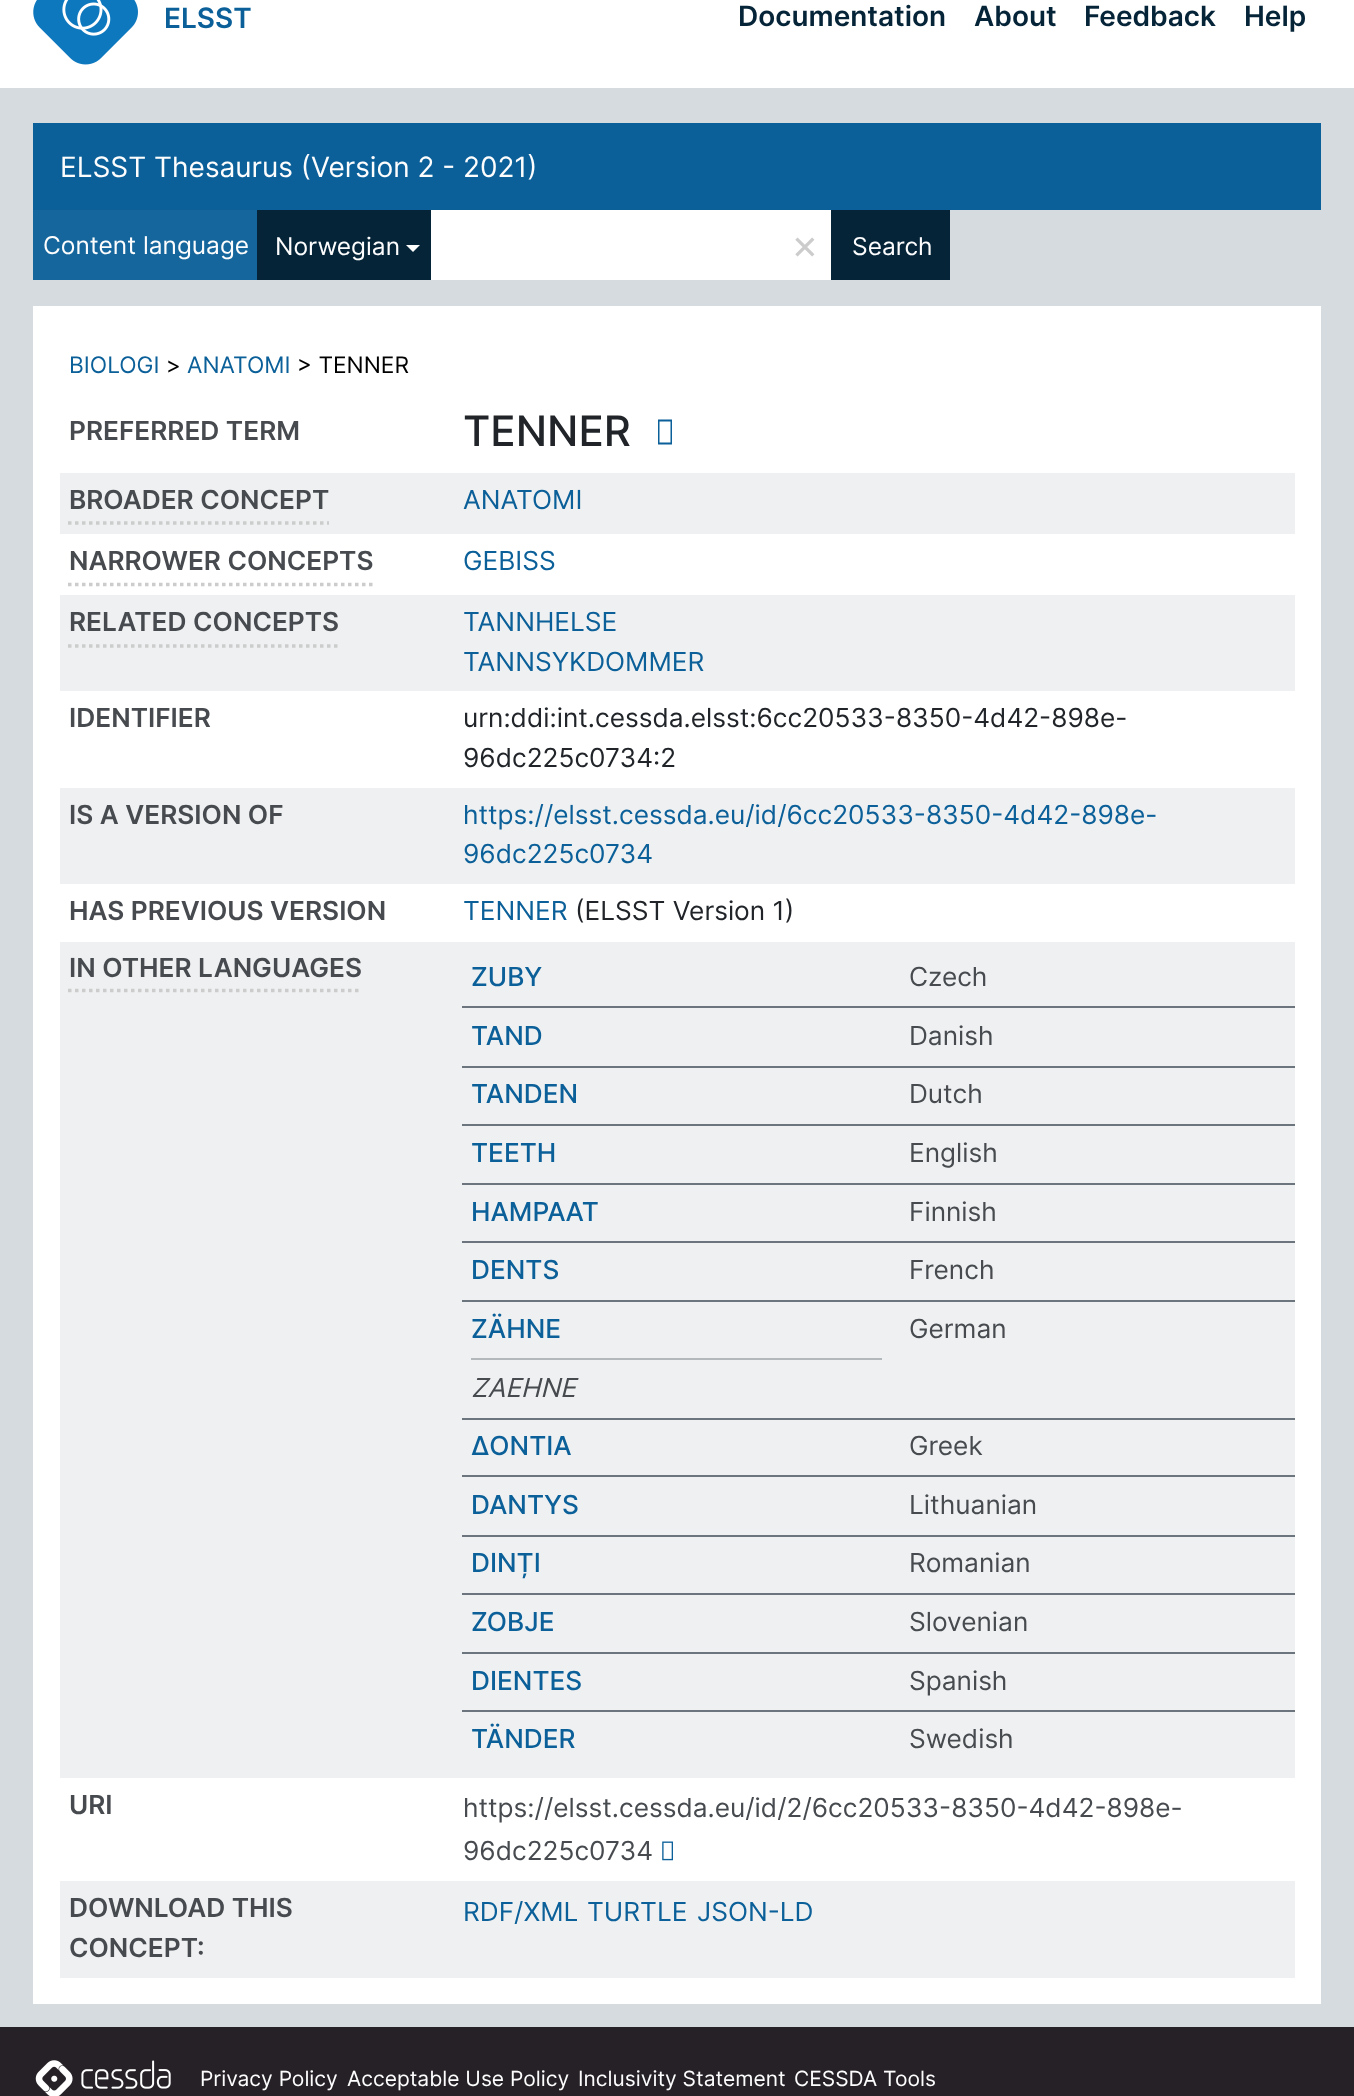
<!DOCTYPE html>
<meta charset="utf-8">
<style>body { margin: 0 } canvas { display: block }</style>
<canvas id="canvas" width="1354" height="2096"></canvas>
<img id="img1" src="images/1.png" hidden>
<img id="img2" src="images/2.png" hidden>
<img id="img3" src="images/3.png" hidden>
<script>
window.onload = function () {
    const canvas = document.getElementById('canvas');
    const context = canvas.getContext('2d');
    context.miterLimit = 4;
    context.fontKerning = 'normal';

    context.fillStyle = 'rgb(213, 219, 222)';
    context.fillRect(0, 0, 1354, 2096);
    context.fillStyle = 'rgb(255, 255, 255)';
    context.fillRect(0, 0, 1354, 88);
    context.drawImage(document.getElementById('img1'), 33, 0, 105, 65);
    context.fillStyle = 'rgb(11, 96, 153)';
    context.fillRect(33, 123, 1288, 87);
    context.fillStyle = 'rgb(21, 102, 156)';
    context.fillRect(33, 210, 224, 70);
    context.fillStyle = 'rgb(5, 36, 56)';
    context.fillRect(257, 210, 174, 70);
    context.fillStyle = 'rgb(255, 255, 255)';
    context.beginPath();
    context.moveTo(406, 245);
    context.lineTo(420, 245);
    context.lineTo(413, 252);
    context.closePath();
    context.fill();
    context.fillRect(431, 210, 400, 70);
    context.fillStyle = 'rgb(5, 36, 56)';
    context.fillRect(831, 210, 119, 70);
    context.fillStyle = 'rgb(255, 255, 255)';
    context.fillRect(33, 306, 1288, 1698);
    context.fillStyle = 'rgb(11, 96, 153)';
    context.beginPath();
    context.moveTo(658, 444.5);
    context.lineTo(658, 419.5);
    context.lineTo(672, 419.5);
    context.lineTo(672, 444.5);
    context.closePath();
    context.moveTo(659.5, 442.5);
    context.lineTo(670.5, 442.5);
    context.lineTo(670.5, 421.5);
    context.lineTo(659.5, 421.5);
    context.closePath();
    context.fill();
    context.fillStyle = 'rgb(239, 240, 241)';
    context.fillRect(60, 473, 1235, 61);
    context.beginPath();
    context.moveTo(68, 523);
    context.lineTo(329, 523);
    context.strokeStyle = 'rgb(204, 204, 204)';
    context.lineWidth = 3.5;
    context.setLineDash([3.5, 3.5]);
    context.stroke();
    context.beginPath();
    context.moveTo(68, 584.5);
    context.lineTo(373, 584.5);
    context.stroke();
    context.fillRect(60, 595, 1235, 96);
    context.beginPath();
    context.moveTo(68, 646);
    context.lineTo(339.5, 646);
    context.stroke();
    context.fillRect(60, 788, 1235, 96);
    context.fillRect(60, 942, 1235, 836);
    context.beginPath();
    context.moveTo(68, 990.5);
    context.lineTo(362, 990.5);
    context.stroke();
    context.fillStyle = 'rgb(108, 117, 125)';
    context.fillRect(462, 1006, 833, 2);
    context.fillRect(462, 1066, 833, 2);
    context.fillRect(462, 1124, 833, 2);
    context.fillRect(462, 1183, 833, 2);
    context.fillRect(462, 1241, 833, 2);
    context.fillRect(462, 1300, 833, 2);
    context.fillStyle = 'rgb(179, 184, 189)';
    context.fillRect(471, 1358, 411, 2);
    context.fillStyle = 'rgb(108, 117, 125)';
    context.fillRect(462, 1418, 833, 2);
    context.fillRect(462, 1475, 833, 2);
    context.fillRect(462, 1535, 833, 2);
    context.fillRect(462, 1593, 833, 2);
    context.fillRect(462, 1652, 833, 2);
    context.fillRect(462, 1710, 833, 2);
    context.drawImage(document.getElementById('img2'), 662, 1841, 11, 20);
    context.fillStyle = 'rgb(239, 240, 241)';
    context.fillRect(60, 1881, 1235, 97);
    context.fillStyle = 'rgb(38, 33, 38)';
    context.fillRect(0, 2027, 1354, 69);
    context.drawImage(document.getElementById('img3'), 35, 2060, 136, 36);
    context.font = '600 28px Inter';
    context.fillStyle = 'rgb(11, 96, 153)';
    context.fillText('ELSST', 164, 28);
    context.fillStyle = 'rgb(5, 36, 56)';
    context.fillText('Documentation', 738, 26);
    context.fillText('About', 974, 26);
    context.fillText('Feedback', 1084, 26);
    context.fillText('Help', 1244, 26);
    context.font = '28px Inter';
    context.fillStyle = 'rgb(253, 253, 254)';
    context.fillText('ELSST Thesaurus (Version 2 - 2021)', 60, 177);
    context.font = '24.5px Inter';
    context.fillText('Content language', 43, 254);
    context.fillText('Norwegian', 275, 255);
    context.font = '42px Inter';
    context.fillStyle = 'rgb(204, 204, 204)';
    context.fillText('×', 791, 259);
    context.font = '24.5px Inter';
    context.fillStyle = 'rgb(253, 253, 254)';
    context.fillText('Search', 852, 255);
    context.font = '22.75px Inter';
    context.fillStyle = 'rgb(11, 96, 153)';
    context.fillText('BIOLOGI', 69, 373);
    context.fillStyle = 'rgb(0, 0, 0)';
    context.fillText('>', 166, 373);
    context.fillStyle = 'rgb(11, 96, 153)';
    context.fillText('ANATOMI', 187, 373);
    context.fillStyle = 'rgb(0, 0, 0)';
    context.fillText('> TENNER', 297, 373);
    context.font = '600 26.25px Inter';
    context.fillStyle = 'rgb(71, 75, 79)';
    context.fillText('PREFERRED TERM', 69, 440);
    context.font = '500 42px Inter';
    context.fillStyle = 'rgb(33, 37, 41)';
    context.fillText('TENNER', 463, 446);
    context.font = '600 26.25px Inter';
    context.fillStyle = 'rgb(71, 75, 79)';
    context.fillText('BROADER CONCEPT', 69, 509);
    context.font = '26.25px Inter';
    context.fillStyle = 'rgb(11, 96, 153)';
    context.fillText('ANATOMI', 463, 509);
    context.font = '600 26.25px Inter';
    context.fillStyle = 'rgb(71, 75, 79)';
    context.fillText('NARROWER CONCEPTS', 69, 570);
    context.font = '26.25px Inter';
    context.fillStyle = 'rgb(11, 96, 153)';
    context.fillText('GEBISS', 463, 570);
    context.font = '600 26.25px Inter';
    context.fillStyle = 'rgb(71, 75, 79)';
    context.fillText('RELATED CONCEPTS', 69, 631);
    context.font = '26.25px Inter';
    context.fillStyle = 'rgb(11, 96, 153)';
    context.fillText('TANNHELSE', 463, 631);
    context.fillText('TANNSYKDOMMER', 463, 671);
    context.font = '600 26.25px Inter';
    context.fillStyle = 'rgb(71, 75, 79)';
    context.fillText('IDENTIFIER', 69, 727);
    context.font = '26.25px Inter';
    context.fillStyle = 'rgb(33, 37, 41)';
    context.fillText('urn:ddi:int.cessda.elsst:6cc20533-8350-4d42-898e-', 463, 727);
    context.fillText('96dc225c0734:2', 463, 767);
    context.font = '600 26.25px Inter';
    context.fillStyle = 'rgb(71, 75, 79)';
    context.fillText('IS A VERSION OF', 69, 824);
    context.font = '26.25px Inter';
    context.fillStyle = 'rgb(11, 96, 153)';
    context.fillText('https://elsst.cessda.eu/id/6cc20533-8350-4d42-898e-', 463, 824);
    context.fillText('96dc225c0734', 463, 863);
    context.font = '600 26.25px Inter';
    context.fillStyle = 'rgb(71, 75, 79)';
    context.fillText('HAS PREVIOUS VERSION', 69, 920);
    context.font = '26.25px Inter';
    context.fillStyle = 'rgb(11, 96, 153)';
    context.fillText('TENNER', 463, 920);
    context.fillStyle = 'rgb(33, 37, 41)';
    context.fillText('(ELSST Version 1)', 575, 920);
    context.font = '600 26.25px Inter';
    context.fillStyle = 'rgb(71, 75, 79)';
    context.fillText('IN OTHER LANGUAGES', 69, 977);
    context.font = '500 26.25px Inter';
    context.fillStyle = 'rgb(11, 96, 153)';
    context.fillText('ZUBY', 471, 986);
    context.font = '26.25px Inter';
    context.fillStyle = 'rgb(71, 75, 79)';
    context.fillText('Czech', 909, 986);
    context.font = '500 26.25px Inter';
    context.fillStyle = 'rgb(11, 96, 153)';
    context.fillText('TAND', 471, 1045);
    context.font = '26.25px Inter';
    context.fillStyle = 'rgb(71, 75, 79)';
    context.fillText('Danish', 909, 1045);
    context.font = '500 26.25px Inter';
    context.fillStyle = 'rgb(11, 96, 153)';
    context.fillText('TANDEN', 471, 1103);
    context.font = '26.25px Inter';
    context.fillStyle = 'rgb(71, 75, 79)';
    context.fillText('Dutch', 909, 1103);
    context.font = '500 26.25px Inter';
    context.fillStyle = 'rgb(11, 96, 153)';
    context.fillText('TEETH', 471, 1162);
    context.font = '26.25px Inter';
    context.fillStyle = 'rgb(71, 75, 79)';
    context.fillText('English', 909, 1162);
    context.font = '500 26.25px Inter';
    context.fillStyle = 'rgb(11, 96, 153)';
    context.fillText('HAMPAAT', 471, 1221);
    context.font = '26.25px Inter';
    context.fillStyle = 'rgb(71, 75, 79)';
    context.fillText('Finnish', 909, 1221);
    context.font = '500 26.25px Inter';
    context.fillStyle = 'rgb(11, 96, 153)';
    context.fillText('DENTS', 471, 1279);
    context.font = '26.25px Inter';
    context.fillStyle = 'rgb(71, 75, 79)';
    context.fillText('French', 909, 1279);
    context.font = '500 26.25px Inter';
    context.fillStyle = 'rgb(11, 96, 153)';
    context.fillText('ZÄHNE', 471, 1338);
    context.font = '26.25px Inter';
    context.fillStyle = 'rgb(71, 75, 79)';
    context.fillText('German', 909, 1338);
    context.font = 'italic 26.25px Inter';
    context.fillText('ZAEHNE', 471, 1397);
    context.font = '500 26.25px Inter';
    context.fillStyle = 'rgb(11, 96, 153)';
    context.fillText('ΔΟΝΤΙΑ', 471, 1455);
    context.font = '26.25px Inter';
    context.fillStyle = 'rgb(71, 75, 79)';
    context.fillText('Greek', 909, 1455);
    context.font = '500 26.25px Inter';
    context.fillStyle = 'rgb(11, 96, 153)';
    context.fillText('DANTYS', 471, 1514);
    context.font = '26.25px Inter';
    context.fillStyle = 'rgb(71, 75, 79)';
    context.fillText('Lithuanian', 909, 1514);
    context.font = '500 26.25px Inter';
    context.fillStyle = 'rgb(11, 96, 153)';
    context.fillText('DINȚI', 471, 1572);
    context.font = '26.25px Inter';
    context.fillStyle = 'rgb(71, 75, 79)';
    context.fillText('Romanian', 909, 1572);
    context.font = '500 26.25px Inter';
    context.fillStyle = 'rgb(11, 96, 153)';
    context.fillText('ZOBJE', 471, 1631);
    context.font = '26.25px Inter';
    context.fillStyle = 'rgb(71, 75, 79)';
    context.fillText('Slovenian', 909, 1631);
    context.font = '500 26.25px Inter';
    context.fillStyle = 'rgb(11, 96, 153)';
    context.fillText('DIENTES', 471, 1690);
    context.font = '26.25px Inter';
    context.fillStyle = 'rgb(71, 75, 79)';
    context.fillText('Spanish', 909, 1690);
    context.font = '500 26.25px Inter';
    context.fillStyle = 'rgb(11, 96, 153)';
    context.fillText('TÄNDER', 471, 1748);
    context.font = '26.25px Inter';
    context.fillStyle = 'rgb(71, 75, 79)';
    context.fillText('Swedish', 909, 1748);
    context.font = '600 26.25px Inter';
    context.fillText('URI', 69, 1814);
    context.font = '26.25px Inter';
    context.fillText('https://elsst.cessda.eu/id/2/6cc20533-8350-4d42-898e-', 463, 1817);
    context.fillText('96dc225c0734', 463, 1860);
    context.font = '600 26.25px Inter';
    context.fillText('DOWNLOAD THIS', 69, 1917);
    context.fillText('CONCEPT:', 69, 1957);
    context.font = '26.25px Inter';
    context.fillStyle = 'rgb(11, 96, 153)';
    context.fillText('RDF/XML', 463, 1921);
    context.fillText('TURTLE', 587, 1921);
    context.fillText('JSON-LD', 697, 1921);
    context.font = '21px Inter';
    context.fillStyle = 'rgb(253, 253, 254)';
    context.fillText('Privacy Policy', 200, 2086);
    context.fillText('Acceptable Use Policy', 347, 2086);
    context.fillText('Inclusivity Statement', 578, 2086);
    context.fillText('CESSDA Tools', 794, 2086);
};
</script>
